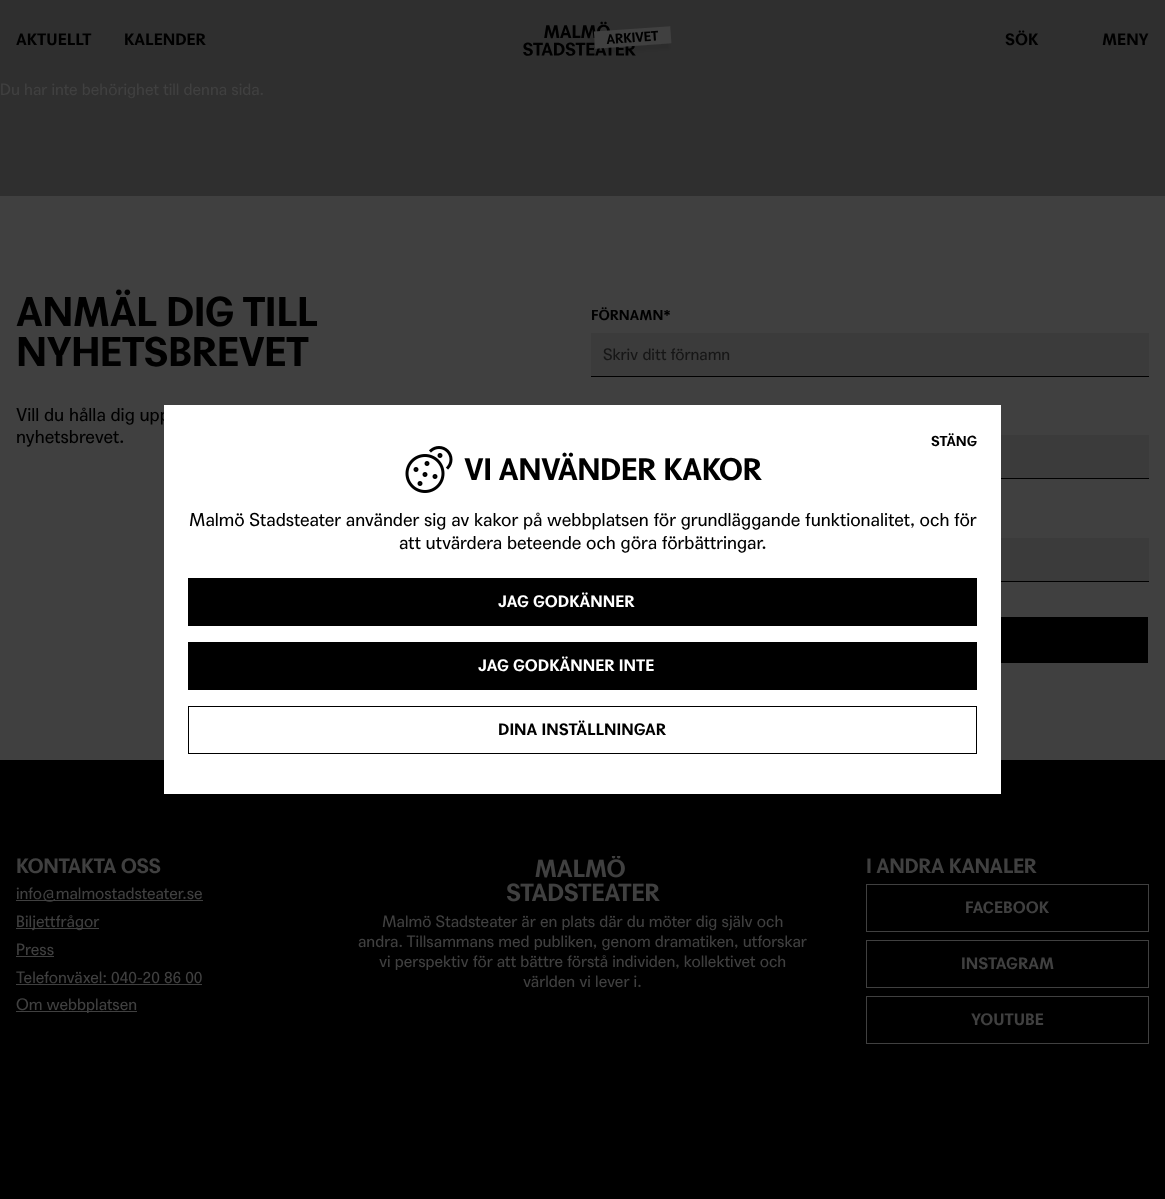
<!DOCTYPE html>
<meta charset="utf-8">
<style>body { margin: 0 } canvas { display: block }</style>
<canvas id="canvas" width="1165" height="1199"></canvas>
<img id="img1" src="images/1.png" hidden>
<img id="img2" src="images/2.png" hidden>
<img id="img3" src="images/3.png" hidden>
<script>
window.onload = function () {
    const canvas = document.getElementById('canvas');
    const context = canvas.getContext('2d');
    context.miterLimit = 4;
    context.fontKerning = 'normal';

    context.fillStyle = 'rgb(47, 47, 47)';
    context.fillRect(0, 0, 1165, 1199);
    context.drawImage(document.getElementById('img1'), 523, 21, 149, 35);
    context.fillStyle = 'rgb(64, 64, 64)';
    context.fillRect(0, 196, 1165, 564);
    context.fillStyle = 'rgb(59, 59, 59)';
    context.fillRect(591, 333, 558, 43);
    context.fillStyle = 'rgb(0, 0, 0)';
    context.fillRect(591, 376, 558, 1);
    context.fillStyle = 'rgb(59, 59, 59)';
    context.fillRect(1001, 435, 148, 43);
    context.fillStyle = 'rgb(0, 0, 0)';
    context.fillRect(1001, 478, 148, 1);
    context.fillStyle = 'rgb(59, 59, 59)';
    context.fillRect(1001, 538, 148, 43);
    context.fillStyle = 'rgb(0, 0, 0)';
    context.fillRect(1001, 581, 148, 1);
    context.fillRect(1001, 617, 147, 46);
    context.fillRect(0, 760, 1165, 439);
    context.fillStyle = 'rgb(64, 64, 64)';
    context.fillRect(16, 900, 187, 1);
    context.fillRect(16, 928, 83, 1);
    context.fillRect(16, 956, 38, 1);
    context.fillRect(16, 984, 186, 1);
    context.fillRect(16, 1011, 121, 1);
    context.drawImage(document.getElementById('img2'), 507, 856, 153, 46);
    context.strokeStyle = 'rgb(64, 64, 64)';
    context.strokeRect(866.5, 884.5, 282, 47);
    context.strokeRect(866.5, 940.5, 282, 47);
    context.strokeRect(866.5, 996.5, 282, 47);
    context.font = 'bold 16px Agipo';
    context.fillStyle = 'rgb(0, 0, 0)';
    context.fillText('AKTUELLT', 16, 45);
    context.fillText('KALENDER', 124, 45);
    context.fillText('SÖK', 1005, 45);
    context.fillText('MENY', 1102, 45);
    context.font = '16px Agipo';
    context.fillStyle = 'rgb(64, 64, 64)';
    context.fillText('Du har inte behörighet till denna sida.', 0, 95);
    context.letterSpacing = '-0.75px';
    context.font = 'bold 40px Agipo';
    context.fillStyle = 'rgb(0, 0, 0)';
    context.fillText('ANMÄL DIG TILL', 16, 326);
    context.fillText('NYHETSBREVET', 16, 366);
    context.letterSpacing = '0px';
    context.font = '18px Agipo';
    context.fillText('Vill du hålla dig upp', 16, 421);
    context.fillText('nyhetsbrevet.', 16, 443);
    context.font = 'bold 14px Agipo';
    context.fillText('FÖRNAMN*', 591, 320);
    context.font = '16px Agipo';
    context.fillStyle = 'rgb(22, 22, 22)';
    context.fillText('Skriv ditt förnamn', 603, 360);
    context.letterSpacing = '-0.4px';
    context.font = 'bold 20px Agipo';
    context.fillStyle = 'rgb(64, 64, 64)';
    context.fillText('KONTAKTA OSS', 16, 873);
    context.letterSpacing = '0px';
    context.font = '16px Agipo';
    context.fillText('info@malmostadsteater.se', 16, 899);
    context.fillText('Biljettfrågor', 16, 927);
    context.fillText('Press', 16, 955);
    context.fillText('Telefonväxel: 040-20 86 00', 16, 983);
    context.fillText('Om webbplatsen', 16, 1010);
    context.fillText('Malmö Stadsteater är en plats där du möter dig själv och', 382, 927);
    context.fillText('andra. Tillsammans med publiken, genom dramatiken, utforskar', 358, 947);
    context.fillText('vi perspektiv för att bättre förstå individen, kollektivet och', 379, 967);
    context.fillText('världen vi lever i.', 523, 987);
    context.letterSpacing = '-0.4px';
    context.font = 'bold 20px Agipo';
    context.fillText('I ANDRA KANALER', 866, 873);
    context.letterSpacing = '0px';
    context.font = 'bold 16px Agipo';
    context.fillText('FACEBOOK', 965, 913);
    context.fillText('INSTAGRAM', 961, 969);
    context.fillText('YOUTUBE', 971, 1025);
    context.fillStyle = 'rgb(255, 255, 255)';
    context.fillRect(164, 405, 837, 389);
    context.font = 'bold 14px Agipo';
    context.fillStyle = 'rgb(0, 0, 0)';
    context.fillText('STÄNG', 931, 446);
    context.drawImage(document.getElementById('img3'), 405, 446, 48, 47);
    context.letterSpacing = '-0.6px';
    context.font = 'bold 30px Agipo';
    context.fillText('VI ANVÄNDER KAKOR', 464, 480);
    context.letterSpacing = '0px';
    context.font = '18px Agipo';
    context.fillText('Malmö Stadsteater använder sig av kakor på webbplatsen för grundläggande funktionalitet, och för', 189, 526);
    context.fillText('att utvärdera beteende och göra förbättringar.', 399, 549);
    context.fillRect(188, 578, 789, 48);
    context.font = 'bold 16px Agipo';
    context.fillStyle = 'rgb(255, 255, 255)';
    context.fillText('JAG GODKÄNNER', 498, 607);
    context.fillStyle = 'rgb(0, 0, 0)';
    context.fillRect(188, 642, 789, 48);
    context.fillStyle = 'rgb(255, 255, 255)';
    context.fillText('JAG GODKÄNNER INTE', 478, 671);
    context.strokeStyle = 'rgb(0, 0, 0)';
    context.strokeRect(188.5, 706.5, 788, 47);
    context.fillStyle = 'rgb(0, 0, 0)';
    context.fillText('DINA INSTÄLLNINGAR', 498, 735);
};
</script>
